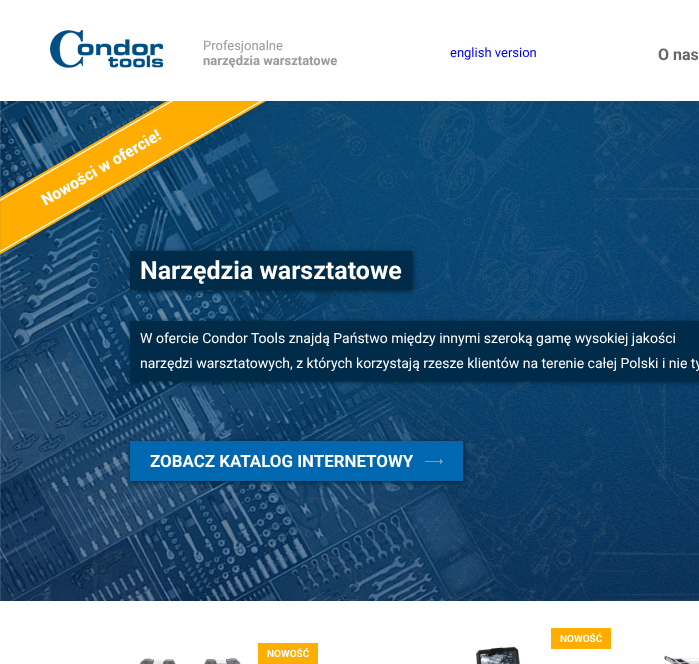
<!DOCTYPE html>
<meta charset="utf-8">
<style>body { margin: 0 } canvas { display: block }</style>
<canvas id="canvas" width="699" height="664"></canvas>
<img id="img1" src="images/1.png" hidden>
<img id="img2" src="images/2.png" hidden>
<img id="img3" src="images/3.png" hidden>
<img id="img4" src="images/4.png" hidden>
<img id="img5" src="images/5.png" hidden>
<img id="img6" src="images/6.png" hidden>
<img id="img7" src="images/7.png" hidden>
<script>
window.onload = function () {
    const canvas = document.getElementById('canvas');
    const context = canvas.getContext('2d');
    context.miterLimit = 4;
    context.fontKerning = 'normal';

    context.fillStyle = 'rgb(255, 255, 255)';
    context.fillRect(0, 0, 699, 664);
    context.drawImage(document.getElementById('img1'), 50, 30, 113, 38);
    context.drawImage(document.getElementById('img2'), 0, 101, 699, 500);
    context.drawImage(document.getElementById('img3'), 0, 101, 269, 164);
    context.fillStyle = 'rgb(0, 32, 54)';
    context.filter = 'blur(2.5px)';
    context.beginPath();
    context.rect(131, 252, 282, 39);
    context.fill();
    context.filter = 'none';
    context.fillStyle = 'rgb(0, 43, 73)';
    context.fillRect(130, 251, 282, 39);
    context.fillStyle = 'rgb(0, 32, 54)';
    context.filter = 'blur(2.5px)';
    context.beginPath();
    context.rect(131, 322, 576, 60);
    context.fill();
    context.filter = 'none';
    context.fillStyle = 'rgb(0, 43, 73)';
    context.fillRect(130, 321, 569, 60);
    context.fillStyle = 'rgb(0, 32, 54)';
    context.filter = 'blur(2.5px)';
    context.beginPath();
    context.rect(131, 442, 333, 40);
    context.fill();
    context.filter = 'none';
    context.fillStyle = 'rgb(0, 104, 177)';
    context.fillRect(130, 441, 333, 40);
    context.drawImage(document.getElementById('img4'), 425, 459, 18, 5);
    context.fillStyle = 'rgb(255, 173, 1)';
    context.fillRect(551, 628, 60, 21);
    context.drawImage(document.getElementById('img5'), 476, 646, 45, 18);
    context.fillRect(258, 643, 60, 21);
    context.drawImage(document.getElementById('img6'), 140, 658, 101, 6);
    context.drawImage(document.getElementById('img7'), 664, 655, 35, 9);
    context.font = '13px Roboto';
    context.fillStyle = 'rgb(153, 153, 153)';
    context.fillText('Profesjonalne', 203, 50);
    context.font = 'bold 13px Roboto';
    context.fillText('narzędzia warsztatowe', 203, 65);
    context.font = '13px Roboto';
    context.fillStyle = 'rgb(0, 0, 238)';
    context.fillText('english version', 450, 57);
    context.font = 'bold 16px Roboto';
    context.fillStyle = 'rgb(102, 102, 102)';
    context.fillText('O nas', 658, 60);
    context.font = 'bold 25px Roboto';
    context.fillStyle = 'rgb(255, 255, 255)';
    context.fillText('Narzędzia warsztatowe', 140, 279);
    context.font = '14px Roboto';
    context.fillText('W ofercie Condor Tools znajdą Państwo między innymi szeroką gamę wysokiej jakości', 140, 343);
    context.fillText('narzędzi warsztatowych, z których korzystają rzesze klientów na terenie całej Polski i nie ty', 140, 368);
    context.font = 'bold 16.9px Roboto';
    context.fillText('ZOBACZ KATALOG INTERNETOWY', 150, 467);
    context.font = 'bold 10px Roboto';
    context.fillText('NOWOŚĆ', 560, 642);
    context.fillText('NOWOŚĆ', 267, 657);
};
</script>
